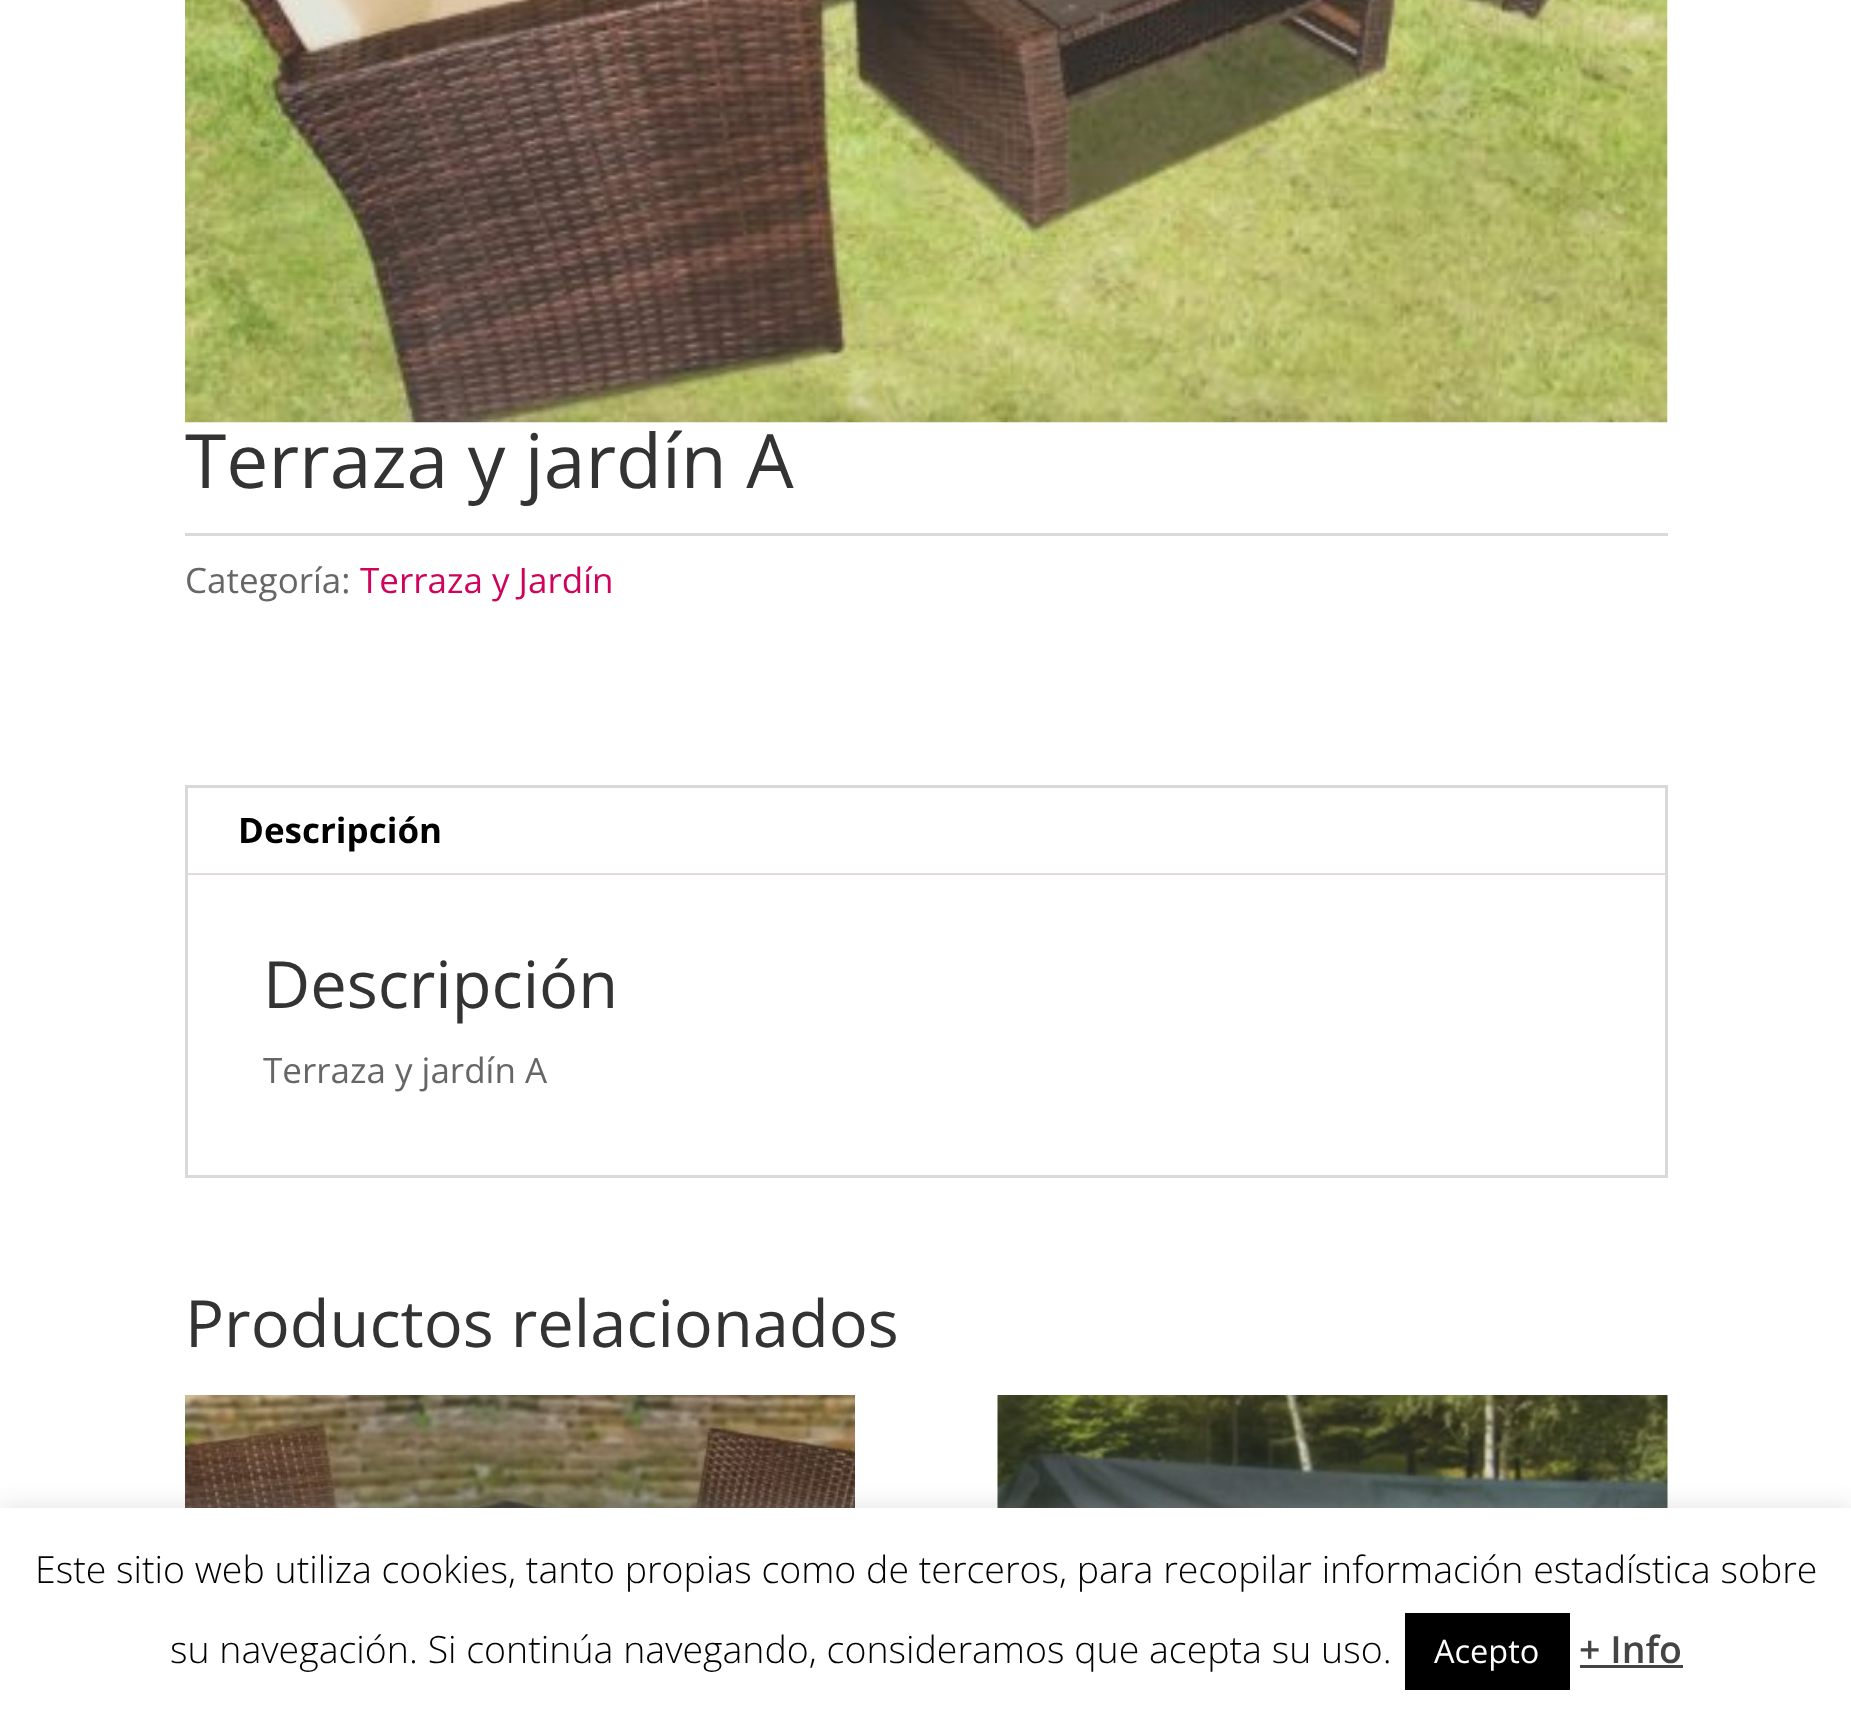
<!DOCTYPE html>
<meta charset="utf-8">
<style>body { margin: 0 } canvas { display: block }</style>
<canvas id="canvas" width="1851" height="1719"></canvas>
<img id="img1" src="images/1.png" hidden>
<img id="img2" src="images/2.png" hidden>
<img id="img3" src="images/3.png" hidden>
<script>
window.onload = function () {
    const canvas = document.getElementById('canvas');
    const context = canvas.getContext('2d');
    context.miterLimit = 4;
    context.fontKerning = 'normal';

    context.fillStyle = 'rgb(255, 255, 255)';
    context.fillRect(0, 0, 1851, 1719);
    context.drawImage(document.getElementById('img1'), 185, 0, 1483, 423);
    context.fillStyle = 'rgb(218, 218, 218)';
    context.fillRect(185, 533, 1483, 3);
    context.strokeStyle = 'rgb(217, 217, 217)';
    context.lineWidth = 3;
    context.strokeRect(186.5, 786.5, 1480, 390);
    context.fillStyle = 'rgb(224, 218, 223)';
    context.fillRect(188, 873, 1477, 2);
    context.drawImage(document.getElementById('img2'), 185, 1395, 670, 113);
    context.drawImage(document.getElementById('img3'), 997, 1395, 671, 113);
    context.fillStyle = 'rgba(172, 171, 171, 0.3)';
    context.filter = 'blur(12.5px)';
    context.beginPath();
    context.rect(0, 1505, 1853, 213);
    context.fill();
    context.filter = 'none';
    context.fillStyle = 'rgb(255, 255, 255)';
    context.fillRect(0, 1508, 1851, 211);
    context.fillStyle = 'rgb(0, 0, 0)';
    context.fillRect(1405, 1613, 165, 77);
    context.fillStyle = 'rgb(68, 68, 68)';
    context.fillRect(1580, 1665, 103, 3);
    context.font = '75px Open Sans';
    context.fillStyle = 'rgb(51, 51, 51)';
    context.fillText('Terraza y jardín A', 185, 488);
    context.font = '35px Open Sans';
    context.fillStyle = 'rgb(102, 102, 102)';
    context.fillText('Categoría:', 185, 593);
    context.fillStyle = 'rgb(207, 3, 92)';
    context.fillText('Terraza y Jardín', 360, 593);
    context.font = 'bold 35px Open Sans';
    context.fillStyle = 'rgb(0, 0, 0)';
    context.fillText('Descripción', 238, 843);
    context.font = '65px Open Sans';
    context.fillStyle = 'rgb(51, 51, 51)';
    context.fillText('Descripción', 263, 1008);
    context.font = '35px Open Sans';
    context.fillStyle = 'rgb(102, 102, 102)';
    context.fillText('Terraza y jardín A', 263, 1083);
    context.font = '65px Open Sans';
    context.fillStyle = 'rgb(51, 51, 51)';
    context.fillText('Productos relacionados', 185, 1347);
    context.font = '300 37.5px Open Sans';
    context.fillStyle = 'rgb(0, 0, 0)';
    context.fillText('Este sitio web utiliza cookies, tanto propias como de terceros, para recopilar información estadística sobre', 35, 1583);
    context.fillText('su navegación. Si continúa navegando, consideramos que acepta su uso.', 170, 1663);
    context.font = '32.5px Open Sans';
    context.fillStyle = 'rgb(255, 255, 255)';
    context.fillText('Acepto', 1434, 1663);
    context.font = '600 37.5px Open Sans';
    context.fillStyle = 'rgb(68, 68, 68)';
    context.fillText('+ Info', 1579, 1663);
};
</script>
